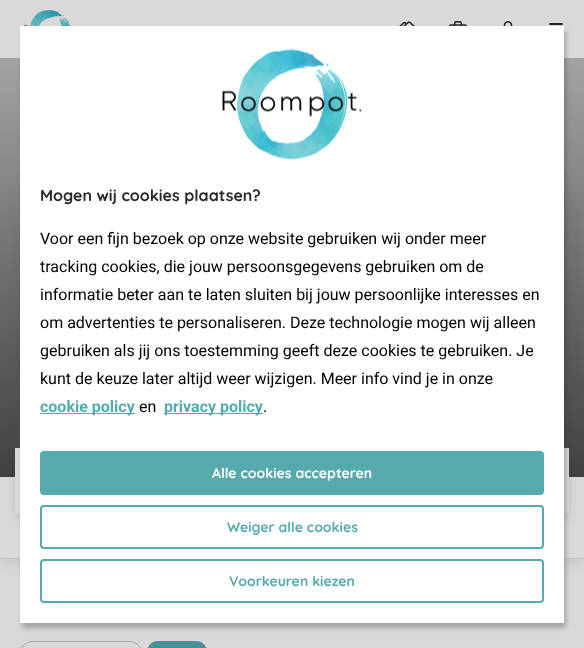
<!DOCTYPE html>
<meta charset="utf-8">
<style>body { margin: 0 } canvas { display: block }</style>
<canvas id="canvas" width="584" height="648"></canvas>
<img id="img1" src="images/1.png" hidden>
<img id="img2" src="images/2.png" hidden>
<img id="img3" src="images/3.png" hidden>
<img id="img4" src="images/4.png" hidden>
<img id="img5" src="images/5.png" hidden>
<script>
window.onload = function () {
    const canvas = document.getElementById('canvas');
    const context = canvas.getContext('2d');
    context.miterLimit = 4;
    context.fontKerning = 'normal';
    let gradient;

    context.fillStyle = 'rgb(217, 217, 217)';
    context.fillRect(0, 0, 584, 648);
    context.drawImage(document.getElementById('img1'), 23, 10, 49, 16);
    context.drawImage(document.getElementById('img2'), 399, 21, 16, 5);
    context.drawImage(document.getElementById('img3'), 449, 21, 18, 5);
    context.drawImage(document.getElementById('img4'), 503, 21, 10, 5);
    context.fillStyle = 'rgb(35, 35, 35)';
    context.beginPath();
    context.roundRect(549, 23, 14, 2, 1);
    context.fill();
    gradient = context.createLinearGradient(292, 58, 292, 478);
    gradient.addColorStop(0, 'rgb(163, 163, 163)');
    gradient.addColorStop(1, 'rgb(65, 65, 65)');
    context.fillStyle = gradient;
    context.fillRect(0, 58, 584, 419);
    context.fillStyle = 'rgba(0, 0, 0, 0.1)';
    context.filter = 'blur(17.5px)';
    context.beginPath();
    context.rect(22, 200, 544, 200);
    context.fill();
    context.filter = 'none';
    context.save();
    context.beginPath();
    context.moveTo(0, 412);
    context.lineTo(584, 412);
    context.lineTo(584, 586);
    context.lineTo(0, 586);
    context.closePath();
    context.moveTo(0, 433);
    context.lineTo(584, 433);
    context.lineTo(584, 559);
    context.lineTo(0, 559);
    context.closePath();
    context.clip('evenodd');
    context.filter = 'blur(7.5px)';
    context.beginPath();
    context.rect(0, 436, 584, 126);
    context.fill();
    context.filter = 'none';
    context.restore();
    context.fillStyle = 'rgb(195, 195, 195)';
    context.fillRect(0, 558, 584, 1);
    context.fillStyle = 'rgba(0, 0, 0, 0.1)';
    context.filter = 'blur(5px)';
    context.beginPath();
    context.rect(15, 451, 554, 66);
    context.fill();
    context.filter = 'none';
    context.fillStyle = 'rgb(217, 217, 217)';
    context.fillRect(15, 448, 554, 66);
    context.beginPath();
    context.roundRect(20.5, 641.5, 121, 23, 15.5);
    context.strokeStyle = 'rgb(171, 171, 171)';
    context.stroke();
    context.fillStyle = 'rgb(73, 145, 148)';
    context.beginPath();
    context.roundRect(147, 641, 60, 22, 15);
    context.fill();
    context.fillStyle = 'rgba(41, 41, 41, 0.3)';
    context.filter = 'blur(2.5px)';
    context.beginPath();
    context.rect(22, 31, 544, 597);
    context.fill();
    context.filter = 'none';
    context.fillStyle = 'rgb(255, 255, 255)';
    context.fillRect(20, 26, 544, 597);
    context.drawImage(document.getElementById('img5'), 222, 48, 140, 112);
    context.fillStyle = 'rgb(86, 170, 174)';
    context.fillRect(40, 413, 95, 1);
    context.fillRect(164, 413, 99, 1);
    context.beginPath();
    context.roundRect(41, 452, 502, 42, 3);
    context.fill();
    context.strokeStyle = 'rgb(86, 170, 174)';
    context.lineWidth = 2;
    context.stroke();
    context.beginPath();
    context.roundRect(41, 506, 502, 42, 3);
    context.stroke();
    context.beginPath();
    context.roundRect(41, 560, 502, 42, 3);
    context.stroke();
    context.font = 'bold 16px Quicksand';
    context.fillStyle = 'rgb(41, 41, 41)';
    context.fillText('Mogen wij cookies plaatsen?', 40, 201);
    context.font = '16px Roboto';
    context.fillStyle = 'rgb(0, 0, 0)';
    context.fillText('Voor een fijn bezoek op onze website gebruiken wij onder meer', 40, 244);
    context.fillText('tracking cookies, die jouw persoonsgegevens gebruiken om de', 40, 272);
    context.fillText('informatie beter aan te laten sluiten bij jouw persoonlijke interesses en', 40, 300);
    context.fillText('om advertenties te personaliseren. Deze technologie mogen wij alleen', 40, 328);
    context.fillText('gebruiken als jij ons toestemming geeft deze cookies te gebruiken. Je', 40, 356);
    context.fillText('kunt de keuze later altijd weer wijzigen. Meer info vind je in onze', 40, 384);
    context.font = 'bold 16px Roboto';
    context.fillStyle = 'rgb(86, 170, 174)';
    context.fillText('cookie policy', 40, 412);
    context.font = '16px Roboto';
    context.fillStyle = 'rgb(0, 0, 0)';
    context.fillText('en', 139, 412);
    context.font = 'bold 16px Roboto';
    context.fillStyle = 'rgb(86, 170, 174)';
    context.fillText('privacy policy', 164, 412);
    context.font = '16px Roboto';
    context.fillStyle = 'rgb(0, 0, 0)';
    context.fillText('.', 263, 412);
    context.font = 'bold 14px Quicksand';
    context.fillStyle = 'rgb(255, 255, 255)';
    context.fillText('Alle cookies accepteren', 212, 478);
    context.fillStyle = 'rgb(86, 170, 174)';
    context.fillText('Weiger alle cookies', 227, 532);
    context.fillText('Voorkeuren kiezen', 229, 586);
};
</script>
